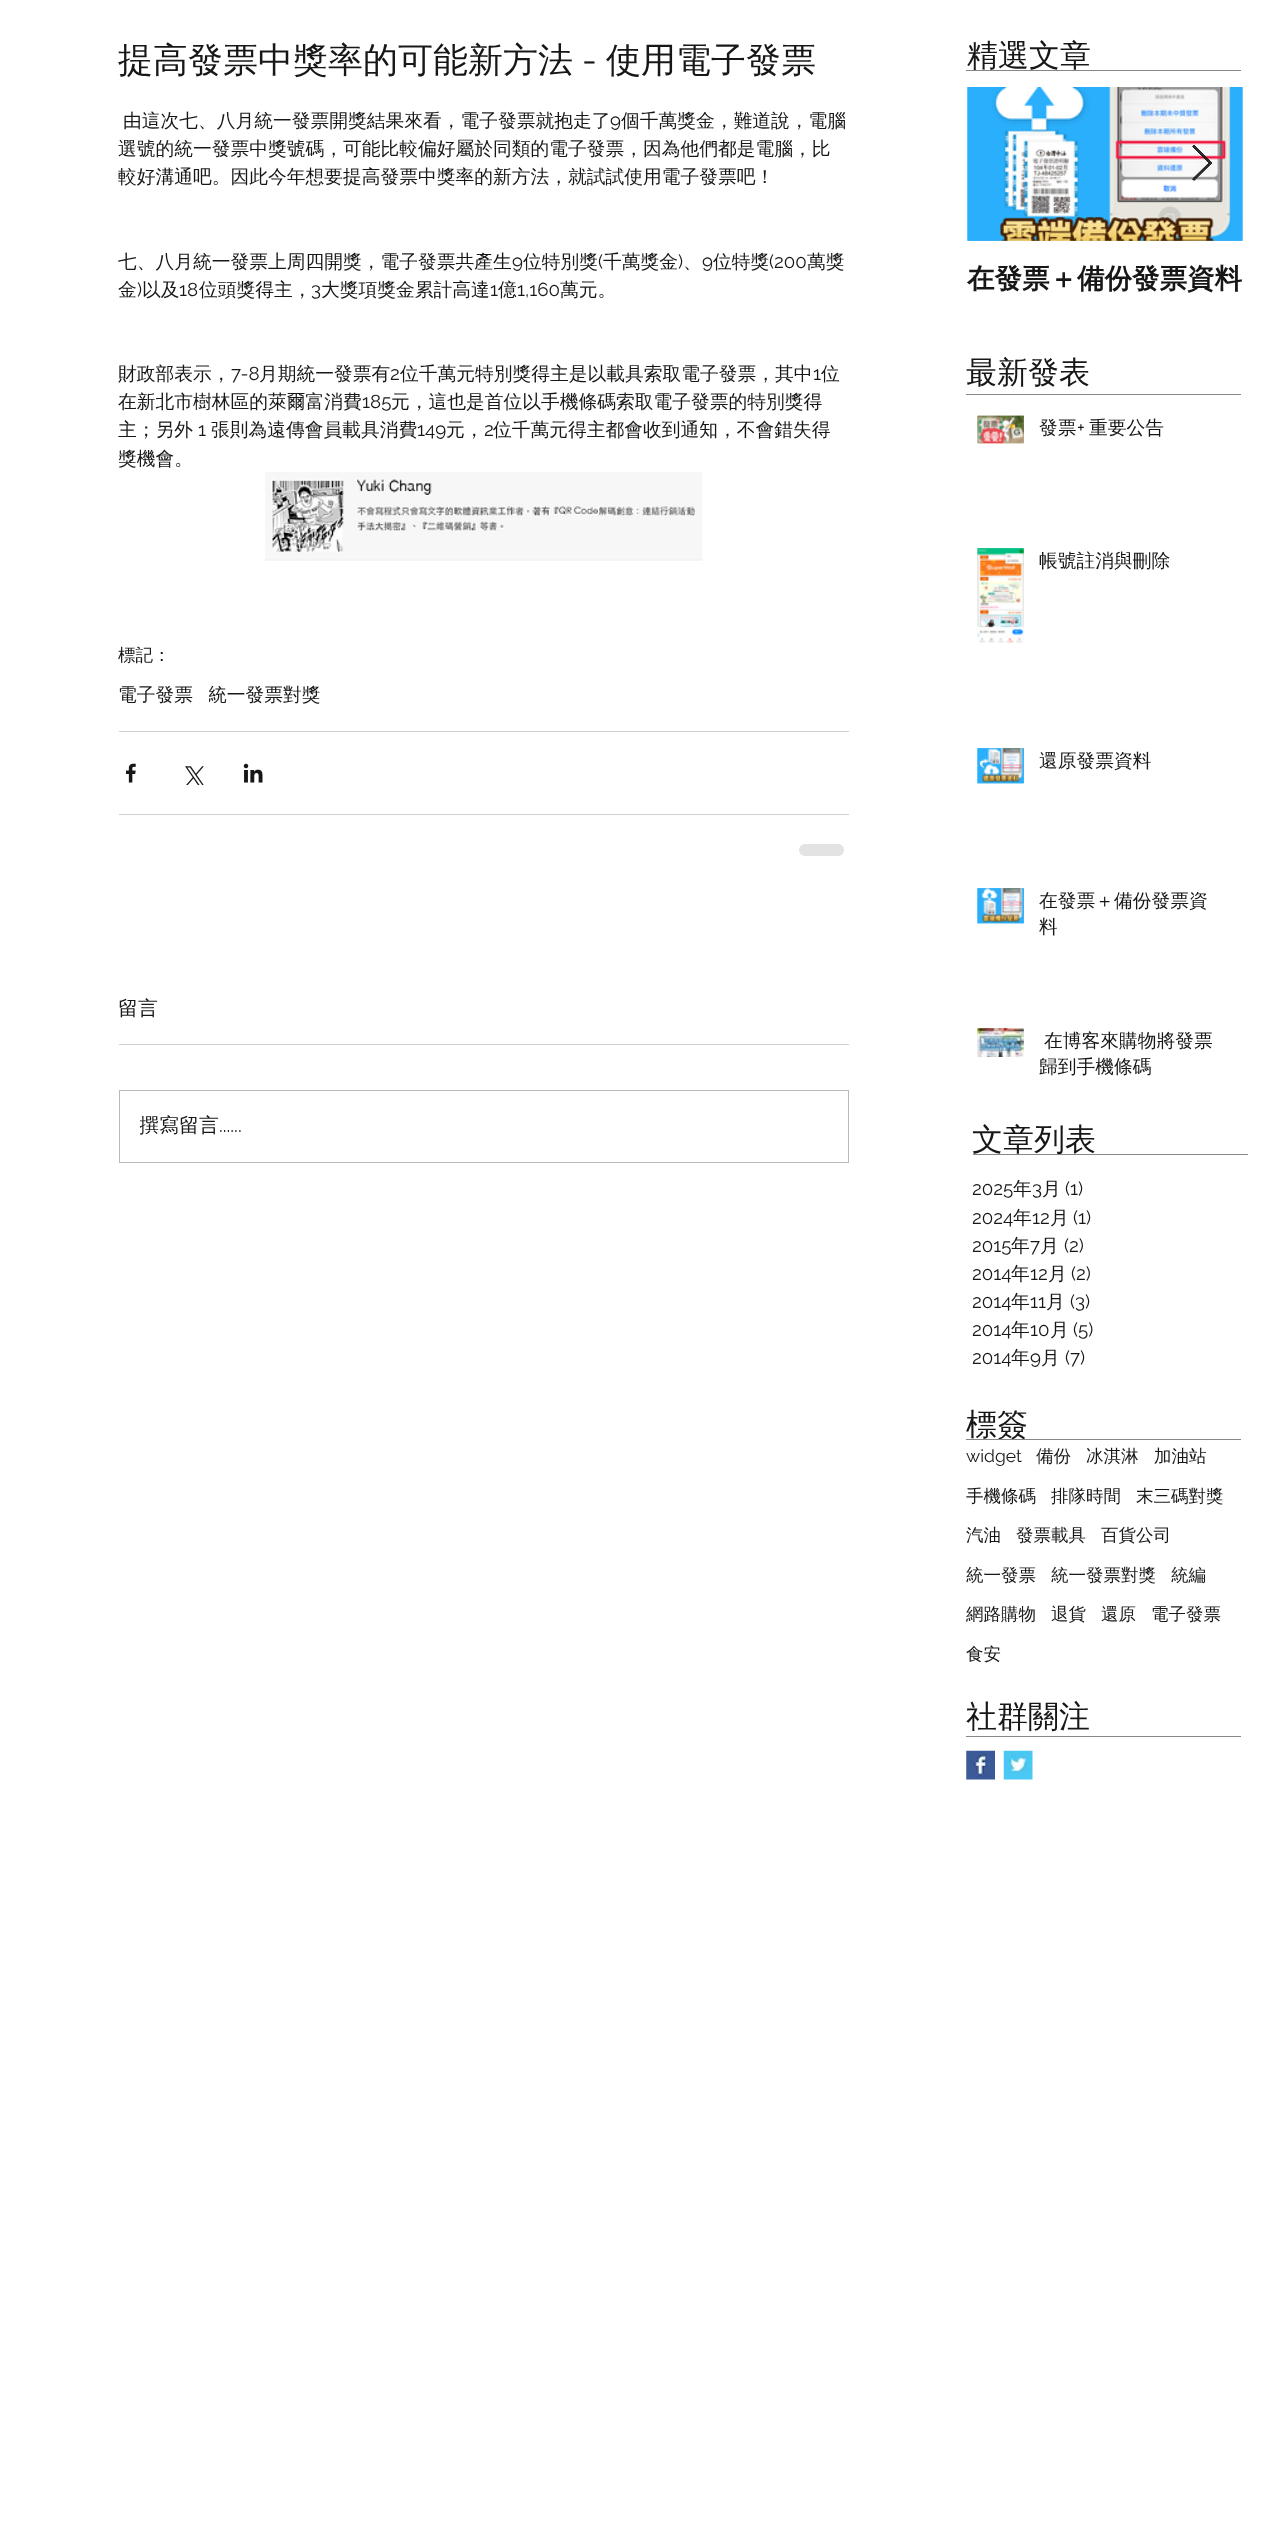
<!DOCTYPE html>
<meta charset="utf-8">
<style>body { margin: 0 } canvas { display: block }</style>
<canvas id="canvas" width="1278" height="2527"></canvas>
<img id="img1" src="images/1.png" hidden>
<img id="img2" src="images/2.png" hidden>
<img id="img3" src="images/3.png" hidden>
<img id="img4" src="images/4.png" hidden>
<img id="img5" src="images/5.png" hidden>
<img id="img6" src="images/6.png" hidden>
<img id="img7" src="images/7.png" hidden>
<img id="img8" src="images/8.png" hidden>
<img id="img9" src="images/9.png" hidden>
<img id="img10" src="images/10.png" hidden>
<img id="img11" src="images/11.png" hidden>
<img id="img12" src="images/12.png" hidden>
<img id="img13" src="images/13.png" hidden>
<img id="img14" src="images/14.png" hidden>
<img id="img15" src="images/15.png" hidden>
<img id="img16" src="images/16.png" hidden>
<img id="img17" src="images/17.png" hidden>
<img id="img18" src="images/18.png" hidden>
<script>
window.onload = function () {
    const canvas = document.getElementById('canvas');
    const context = canvas.getContext('2d');
    context.miterLimit = 4;
    context.fontKerning = 'normal';

    context.fillStyle = 'rgb(255, 255, 255)';
    context.fillRect(0, 0, 1278, 2527);
    context.drawImage(document.getElementById('img1'), 265, 472, 438, 89);
    context.fillStyle = 'rgb(209, 209, 209)';
    context.fillRect(119, 731, 730, 1);
    context.drawImage(document.getElementById('img2'), 126, 763, 10, 20);
    context.drawImage(document.getElementById('img3'), 185, 766, 19, 19);
    context.drawImage(document.getElementById('img4'), 243, 763, 20, 20);
    context.fillRect(119, 814, 730, 1);
    context.fillStyle = 'rgb(227, 227, 227)';
    context.beginPath();
    context.roundRect(799, 844, 45, 12, 6);
    context.fill();
    context.fillStyle = 'rgb(209, 209, 209)';
    context.fillRect(119, 1044, 730, 1);
    context.strokeStyle = 'rgb(186, 185, 185)';
    context.strokeRect(119.5, 1090.5, 729, 72);
    context.drawImage(document.getElementById('img5'), 967, 87, 276, 154);
    context.drawImage(document.getElementById('img6'), 967, 87, 276, 154);
    context.fillStyle = 'rgba(24, 23, 23, 0.9)';
    context.beginPath();
    context.moveTo(1192.5, 146.5);
    context.lineTo(1194, 145);
    context.lineTo(1212, 163);
    context.lineTo(1194, 180.5);
    context.lineTo(1192.5, 179);
    context.lineTo(1209, 163);
    context.closePath();
    context.fill();
    context.strokeStyle = 'rgba(24, 23, 23, 0.9)';
    context.stroke();
    context.fillStyle = 'rgb(133, 136, 135)';
    context.fillRect(966, 394, 275, 1);
    context.drawImage(document.getElementById('img7'), 977, 415, 47, 29);
    context.drawImage(document.getElementById('img8'), 977, 415, 47, 29);
    context.drawImage(document.getElementById('img9'), 977, 548, 47, 95);
    context.drawImage(document.getElementById('img10'), 977, 548, 47, 96);
    context.drawImage(document.getElementById('img11'), 977, 748, 47, 36);
    context.drawImage(document.getElementById('img12'), 977, 748, 47, 36);
    context.drawImage(document.getElementById('img13'), 977, 888, 47, 36);
    context.drawImage(document.getElementById('img14'), 977, 888, 47, 36);
    context.drawImage(document.getElementById('img15'), 977, 1028, 47, 29);
    context.drawImage(document.getElementById('img16'), 977, 1028, 47, 29);
    context.fillRect(966, 1736, 275, 1);
    context.drawImage(document.getElementById('img17'), 966, 1750, 29, 30);
    context.drawImage(document.getElementById('img18'), 1003, 1750, 30, 30);
    context.font = '500 35px WenQuanYi Zen Hei';
    context.fillStyle = 'rgb(24, 23, 23)';
    context.fillText('提高發票中獎率的可能新方法', 118, 72);
    context.font = '35px Raleway';
    context.fillText('-', 582, 72);
    context.font = '500 35px WenQuanYi Zen Hei';
    context.fillText('使用電子發票', 606, 72);
    context.font = '500 18.75px WenQuanYi Zen Hei';
    context.fillText('由這次七、八月統一發票開獎結果來看，電子發票就抱走了', 123, 127);
    context.font = '18.75px Raleway';
    context.fillText('9', 610, 127);
    context.font = '500 18.75px WenQuanYi Zen Hei';
    context.fillText('個千萬獎金，難道說，電腦', 621, 127);
    context.fillText('選號的統一發票中獎號碼，可能比較偏好屬於同類的電子發票，因為他們都是電腦，比', 118, 155);
    context.fillText('較好溝通吧。因此今年想要提高發票中獎率的新方法，就試試使用電子發票吧！', 118, 183);
    context.fillText('七、八月統一發票上周四開獎，電子發票共產生', 118, 268);
    context.font = '18.75px Raleway';
    context.fillText('9', 512, 268);
    context.font = '500 18.75px WenQuanYi Zen Hei';
    context.fillText('位特別獎', 523, 268);
    context.font = '18.75px Raleway';
    context.fillText('(', 598, 268);
    context.font = '500 18.75px WenQuanYi Zen Hei';
    context.fillText('千萬獎金', 603, 268);
    context.font = '18.75px Raleway';
    context.fillText(')', 678, 268);
    context.font = '500 18.75px WenQuanYi Zen Hei';
    context.fillText('、', 683, 268);
    context.font = '18.75px Raleway';
    context.fillText('9', 702, 268);
    context.font = '500 18.75px WenQuanYi Zen Hei';
    context.fillText('位特獎', 713, 268);
    context.font = '18.75px Raleway';
    context.fillText('(200', 769, 268);
    context.font = '500 18.75px WenQuanYi Zen Hei';
    context.fillText('萬獎', 807, 268);
    context.fillText('金', 118, 296);
    context.font = '18.75px Raleway';
    context.fillText(')', 137, 296);
    context.font = '500 18.75px WenQuanYi Zen Hei';
    context.fillText('以及', 142, 296);
    context.font = '18.75px Raleway';
    context.fillText('18', 179, 296);
    context.font = '500 18.75px WenQuanYi Zen Hei';
    context.fillText('位頭獎得主，', 199, 296);
    context.font = '18.75px Raleway';
    context.fillText('3', 311, 296);
    context.font = '500 18.75px WenQuanYi Zen Hei';
    context.fillText('大獎項獎金累計高達', 321, 296);
    context.font = '18.75px Raleway';
    context.fillText('1', 490, 296);
    context.font = '500 18.75px WenQuanYi Zen Hei';
    context.fillText('億', 498, 296);
    context.font = '18.75px Raleway';
    context.fillText('1,160', 517, 296);
    context.font = '500 18.75px WenQuanYi Zen Hei';
    context.fillText('萬元。', 560, 296);
    context.fillText('財政部表示，', 118, 380);
    context.font = '18.75px Raleway';
    context.fillText('7-8', 231, 380);
    context.font = '500 18.75px WenQuanYi Zen Hei';
    context.fillText('月期統一發票有', 259, 380);
    context.font = '18.75px Raleway';
    context.fillText('2', 390, 380);
    context.font = '500 18.75px WenQuanYi Zen Hei';
    context.fillText('位千萬元特別獎得主是以載具索取電子發票，其中', 400, 380);
    context.font = '18.75px Raleway';
    context.fillText('1', 813, 380);
    context.font = '500 18.75px WenQuanYi Zen Hei';
    context.fillText('位', 821, 380);
    context.fillText('在新北市樹林區的萊爾富消費', 118, 408);
    context.font = '18.75px Raleway';
    context.fillText('185', 362, 408);
    context.font = '500 18.75px WenQuanYi Zen Hei';
    context.fillText('元，這也是首位以手機條碼索取電子發票的特別獎得', 391, 408);
    context.fillText('主；另外', 118, 436);
    context.font = '18.75px Raleway';
    context.fillText('1', 198, 436);
    context.font = '500 18.75px WenQuanYi Zen Hei';
    context.fillText('張則為遠傳會員載具消費', 211, 436);
    context.font = '18.75px Raleway';
    context.fillText('149', 417, 436);
    context.font = '500 18.75px WenQuanYi Zen Hei';
    context.fillText('元，', 446, 436);
    context.font = '18.75px Raleway';
    context.fillText('2', 484, 436);
    context.font = '500 18.75px WenQuanYi Zen Hei';
    context.fillText('位千萬元得主都會收到通知，不會錯失得', 493, 436);
    context.fillText('獎機會。', 118, 465);
    context.font = '500 17.5px WenQuanYi Zen Hei';
    context.fillText('標記：', 118, 661);
    context.font = '500 18.75px WenQuanYi Zen Hei';
    context.fillText('電子發票', 118, 701);
    context.save();
    context.beginPath();
    context.rect(209, 684, 112, 22);
    context.clip();
    context.fillText('統一發票對獎', 208, 701);
    context.restore();
    context.font = '500 20px WenQuanYi Zen Hei';
    context.fillText('留言', 118, 1015);
    context.save();
    context.beginPath();
    context.rect(140, 1111, 688, 30);
    context.clip();
    context.fillText('撰寫留言', 139, 1132);
    context.restore();
    context.font = '20px Raleway';
    context.fillText('......', 219, 1132);
    context.font = '500 31px WenQuanYi Zen Hei';
    context.fillText('精選文章', 967, 66);
    context.fillStyle = 'rgb(133, 136, 135)';
    context.fillRect(966, 70, 275, 1);
    context.font = 'bold 27.5px WenQuanYi Zen Hei';
    context.fillStyle = 'rgb(24, 23, 23)';
    context.fillText('在發票＋備份發票資料', 967, 288);
    context.font = '500 31px WenQuanYi Zen Hei';
    context.fillText('最新發表', 966, 383);
    context.font = '500 18.75px WenQuanYi Zen Hei';
    context.fillText('發票', 1039, 434);
    context.font = '18.75px Raleway';
    context.fillText('+', 1077, 434);
    context.font = '500 18.75px WenQuanYi Zen Hei';
    context.fillText('重要公告', 1089, 434);
    context.fillText('帳號註消與刪除', 1039, 567);
    context.fillText('還原發票資料', 1039, 767);
    context.fillText('在發票＋備份發票資', 1039, 907);
    context.fillText('料', 1039, 933);
    context.fillText('在博客來購物將發票', 1044, 1047);
    context.fillText('歸到手機條碼', 1039, 1073);
    context.font = '500 31px WenQuanYi Zen Hei';
    context.fillText('文章列表', 972, 1150);
    context.fillStyle = 'rgb(133, 136, 135)';
    context.fillRect(973, 1154, 275, 1);
    context.font = '18.75px Raleway';
    context.fillStyle = 'rgb(24, 23, 23)';
    context.fillText('2025', 972, 1195);
    context.font = '500 18.75px WenQuanYi Zen Hei';
    context.fillText('年', 1013, 1195);
    context.font = '18.75px Raleway';
    context.fillText('3', 1032, 1195);
    context.font = '500 18.75px WenQuanYi Zen Hei';
    context.fillText('月', 1042, 1195);
    context.font = '18.75px Raleway';
    context.fillText('(1)', 1065, 1195);
    context.fillText('2024', 972, 1224);
    context.font = '500 18.75px WenQuanYi Zen Hei';
    context.fillText('年', 1013, 1224);
    context.font = '18.75px Raleway';
    context.fillText('12', 1032, 1224);
    context.font = '500 18.75px WenQuanYi Zen Hei';
    context.fillText('月', 1050, 1224);
    context.font = '18.75px Raleway';
    context.fillText('(1)', 1073, 1224);
    context.fillText('2015', 972, 1252);
    context.font = '500 18.75px WenQuanYi Zen Hei';
    context.fillText('年', 1011, 1252);
    context.font = '18.75px Raleway';
    context.fillText('7', 1030, 1252);
    context.font = '500 18.75px WenQuanYi Zen Hei';
    context.fillText('月', 1040, 1252);
    context.font = '18.75px Raleway';
    context.fillText('(2)', 1064, 1252);
    context.fillText('2014', 972, 1280);
    context.font = '500 18.75px WenQuanYi Zen Hei';
    context.fillText('年', 1011, 1280);
    context.font = '18.75px Raleway';
    context.fillText('12', 1030, 1280);
    context.font = '500 18.75px WenQuanYi Zen Hei';
    context.fillText('月', 1048, 1280);
    context.font = '18.75px Raleway';
    context.fillText('(2)', 1071, 1280);
    context.fillText('2014', 972, 1308);
    context.font = '500 18.75px WenQuanYi Zen Hei';
    context.fillText('年', 1011, 1308);
    context.font = '18.75px Raleway';
    context.fillText('11', 1030, 1308);
    context.font = '500 18.75px WenQuanYi Zen Hei';
    context.fillText('月', 1046, 1308);
    context.font = '18.75px Raleway';
    context.fillText('(3)', 1070, 1308);
    context.fillText('2014', 972, 1336);
    context.font = '500 18.75px WenQuanYi Zen Hei';
    context.fillText('年', 1011, 1336);
    context.font = '18.75px Raleway';
    context.fillText('10', 1030, 1336);
    context.font = '500 18.75px WenQuanYi Zen Hei';
    context.fillText('月', 1050, 1336);
    context.font = '18.75px Raleway';
    context.fillText('(5)', 1073, 1336);
    context.fillText('2014', 972, 1364);
    context.font = '500 18.75px WenQuanYi Zen Hei';
    context.fillText('年', 1011, 1364);
    context.font = '18.75px Raleway';
    context.fillText('9', 1030, 1364);
    context.font = '500 18.75px WenQuanYi Zen Hei';
    context.fillText('月', 1041, 1364);
    context.font = '18.75px Raleway';
    context.fillText('(7)', 1065, 1364);
    context.font = '500 31px WenQuanYi Zen Hei';
    context.fillText('標簽', 966, 1435);
    context.fillStyle = 'rgb(133, 136, 135)';
    context.fillRect(966, 1439, 275, 1);
    context.font = '17.5px Raleway';
    context.fillStyle = 'rgb(24, 23, 23)';
    context.fillText('widget', 966, 1462);
    context.font = '500 17.5px WenQuanYi Zen Hei';
    context.fillText('備份', 1036, 1462);
    context.fillText('冰淇淋', 1086, 1462);
    context.fillText('加油站', 1154, 1462);
    context.fillText('手機條碼', 966, 1502);
    context.fillText('排隊時間', 1051, 1502);
    context.fillText('末三碼對獎', 1136, 1502);
    context.fillText('汽油', 966, 1541);
    context.fillText('發票載具', 1016, 1541);
    context.fillText('百貨公司', 1101, 1541);
    context.fillText('統一發票', 966, 1581);
    context.fillText('統一發票對獎', 1051, 1581);
    context.fillText('統編', 1171, 1581);
    context.fillText('網路購物', 966, 1620);
    context.fillText('退貨', 1051, 1620);
    context.fillText('還原', 1101, 1620);
    context.fillText('電子發票', 1151, 1620);
    context.fillText('食安', 966, 1660);
    context.font = '500 31px WenQuanYi Zen Hei';
    context.fillText('社群關注', 966, 1727);
};
</script>
